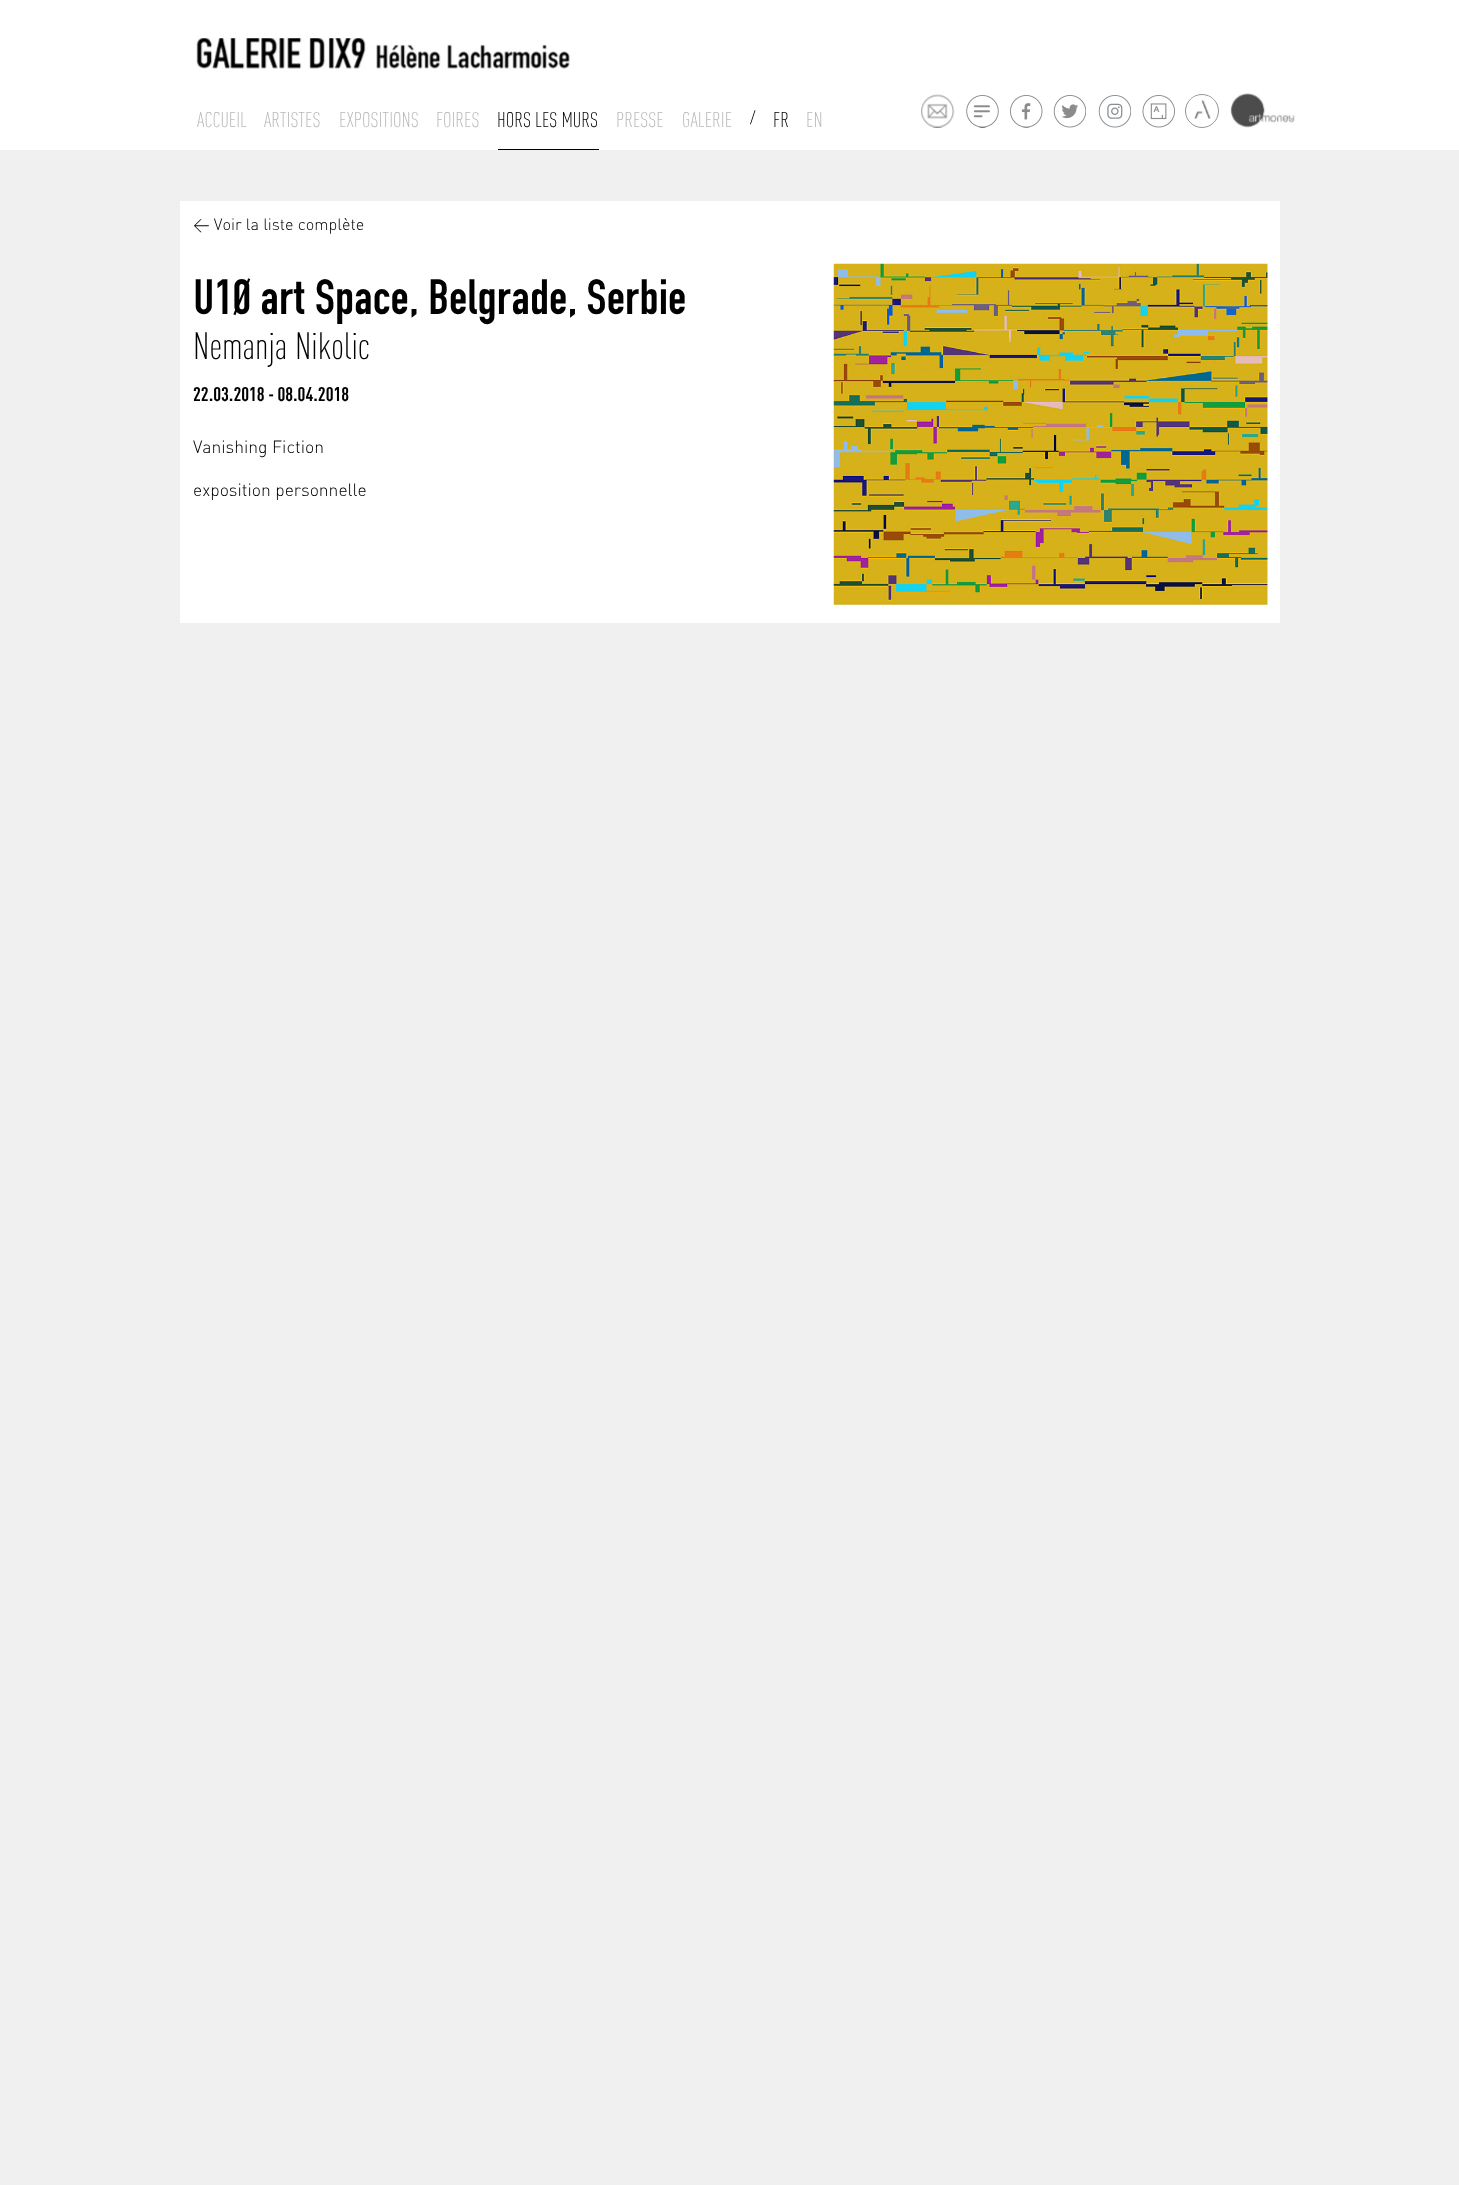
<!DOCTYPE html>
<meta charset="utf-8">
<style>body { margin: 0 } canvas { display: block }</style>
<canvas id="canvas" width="1459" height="2185"></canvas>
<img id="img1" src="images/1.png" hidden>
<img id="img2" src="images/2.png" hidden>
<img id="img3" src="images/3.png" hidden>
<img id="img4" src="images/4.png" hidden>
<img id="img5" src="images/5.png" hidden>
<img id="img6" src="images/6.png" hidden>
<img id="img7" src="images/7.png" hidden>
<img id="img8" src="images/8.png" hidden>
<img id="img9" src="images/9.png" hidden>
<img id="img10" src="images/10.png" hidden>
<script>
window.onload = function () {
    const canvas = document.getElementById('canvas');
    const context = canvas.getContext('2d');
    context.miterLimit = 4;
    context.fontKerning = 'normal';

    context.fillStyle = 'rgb(240, 240, 241)';
    context.fillRect(0, 0, 1459, 2185);
    context.fillStyle = 'rgb(255, 255, 255)';
    context.fillRect(0, 0, 1459, 150);
    context.drawImage(document.getElementById('img1'), 196, 38, 375, 31);
    context.fillStyle = 'rgb(0, 0, 0)';
    context.fillRect(498, 149, 101, 1);
    context.drawImage(document.getElementById('img2'), 921, 94, 34, 34);
    context.drawImage(document.getElementById('img3'), 966, 95, 33, 33);
    context.drawImage(document.getElementById('img4'), 1010, 95, 33, 33);
    context.drawImage(document.getElementById('img5'), 1053, 95, 33, 33);
    context.drawImage(document.getElementById('img6'), 1098, 95, 33, 33);
    context.drawImage(document.getElementById('img7'), 1142, 95, 33, 33);
    context.beginPath();
    context.arc(1202, 111, 16.5, 0, 2 * Math.PI);
    context.strokeStyle = 'rgb(148, 148, 148)';
    context.stroke();
    context.drawImage(document.getElementById('img8'), 1191, 95, 24, 24);
    context.drawImage(document.getElementById('img9'), 1230, 93, 65, 35);
    context.fillStyle = 'rgb(255, 255, 255)';
    context.fillRect(180, 201, 1100, 422);
    context.drawImage(document.getElementById('img10'), 833, 263, 435, 342);
    context.font = '300 21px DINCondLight';
    context.fillStyle = 'rgb(185, 185, 185)';
    context.fillText('ACCUEIL', 197, 127);
    context.fillText('ARTISTES', 264, 127);
    context.fillText('EXPOSITIONS', 339, 127);
    context.fillText('FOIRES', 436, 127);
    context.fillStyle = 'rgb(0, 0, 0)';
    context.fillText('HORS LES MURS', 497, 127);
    context.fillStyle = 'rgb(185, 185, 185)';
    context.fillText('PRESSE', 616, 127);
    context.fillText('GALERIE', 682, 127);
    context.font = '300 16.25px DIN';
    context.fillStyle = 'rgb(0, 0, 0)';
    context.fillText('/', 750, 123);
    context.font = '300 21px DINCondLight';
    context.fillText('FR', 773, 127);
    context.fillStyle = 'rgb(185, 185, 185)';
    context.fillText('EN', 806, 127);
    context.font = '300 16.25px DIN';
    context.fillStyle = 'rgb(0, 0, 0)';
    context.fillText('< Voir la liste complète', 193, 230);
    context.font = '52px "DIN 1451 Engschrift"';
    context.fillText('U10 art Space, Belgrade, Serbie', 193, 314);
    context.font = '300 37.5px DINCondLight';
    context.fillText('Nemanja Nikolic', 193, 359);
    context.font = 'bold 19.5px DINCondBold';
    context.fillText('22.03.2018 - 08.04.2018', 193, 401);
    context.font = '300 17.5px DIN';
    context.fillText('Vanishing Fiction', 193, 453);
    context.fillText('exposition personnelle', 193, 496);
};
</script>
